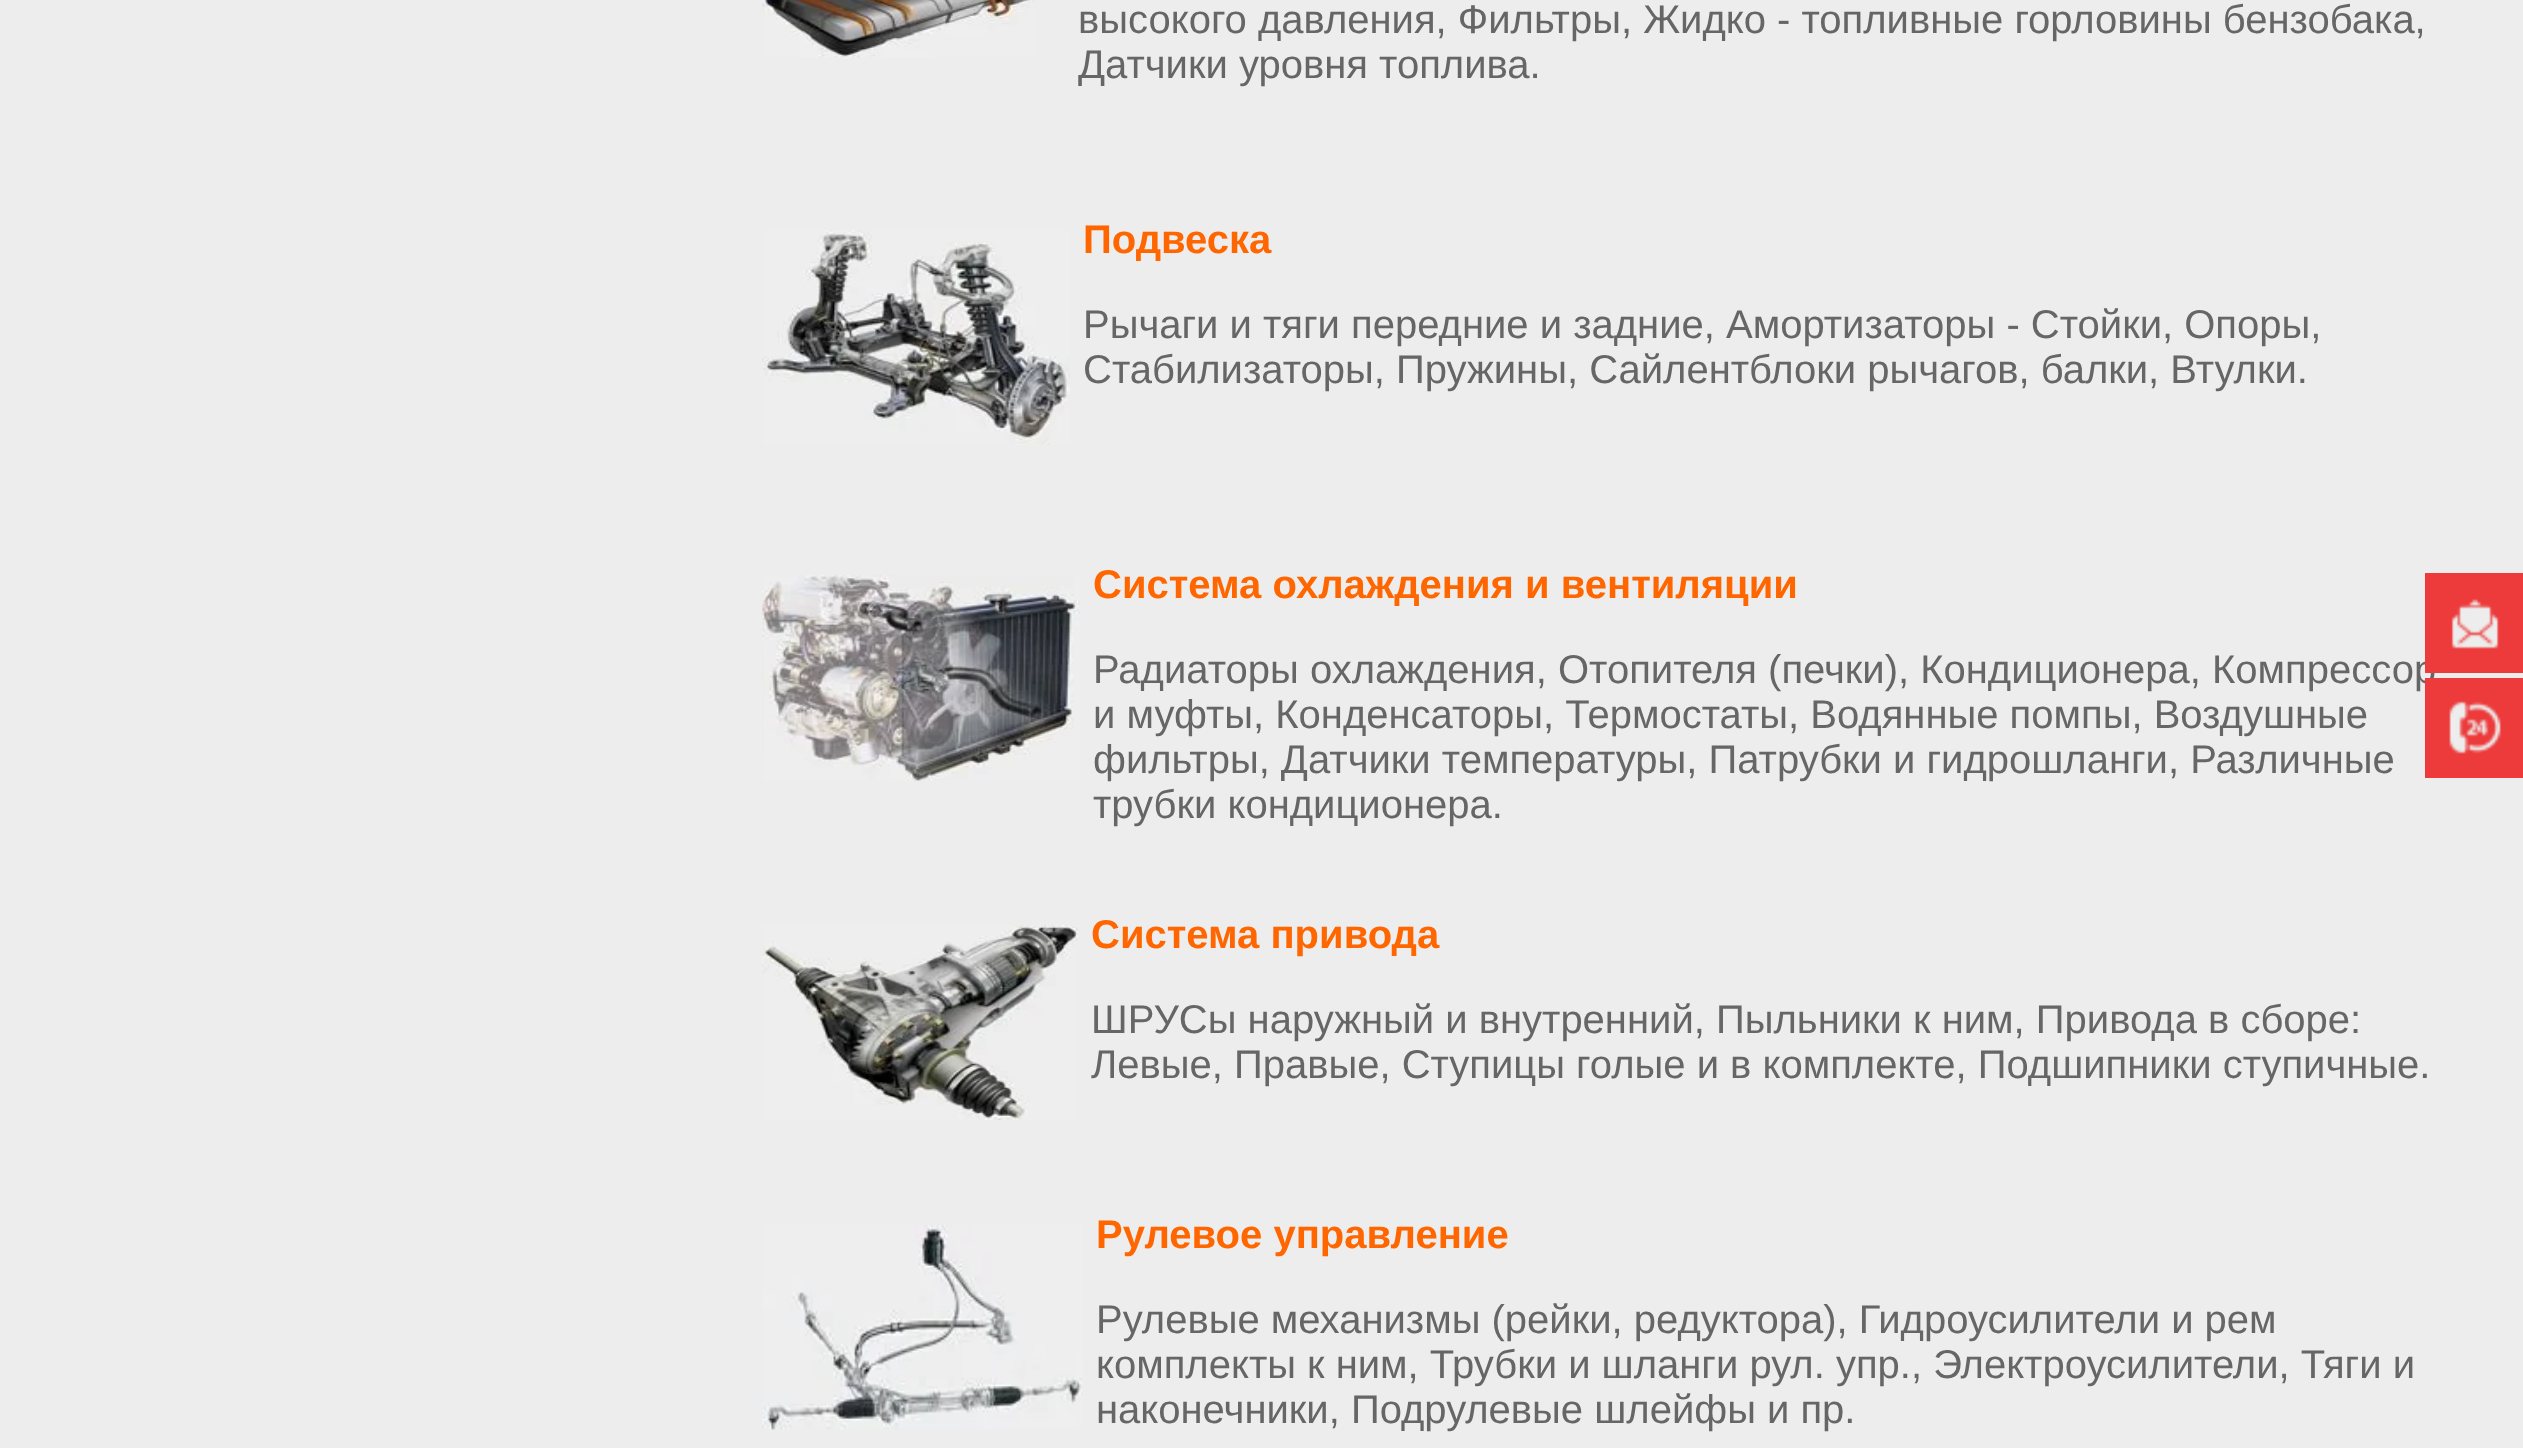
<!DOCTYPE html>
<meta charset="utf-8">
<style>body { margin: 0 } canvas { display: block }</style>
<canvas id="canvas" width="2523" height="1448"></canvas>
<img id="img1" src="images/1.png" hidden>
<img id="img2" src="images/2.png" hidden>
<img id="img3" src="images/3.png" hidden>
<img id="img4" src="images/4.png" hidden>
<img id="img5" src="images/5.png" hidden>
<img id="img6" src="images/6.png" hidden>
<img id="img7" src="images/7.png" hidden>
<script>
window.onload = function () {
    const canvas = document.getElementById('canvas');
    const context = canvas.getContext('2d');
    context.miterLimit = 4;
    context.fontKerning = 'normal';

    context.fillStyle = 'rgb(237, 237, 237)';
    context.fillRect(0, 0, 2523, 1448);
    context.drawImage(document.getElementById('img1'), 762, 0, 273, 58);
    context.drawImage(document.getElementById('img2'), 762, 230, 308, 215);
    context.drawImage(document.getElementById('img3'), 762, 575, 318, 206);
    context.drawImage(document.getElementById('img4'), 762, 925, 316, 195);
    context.drawImage(document.getElementById('img5'), 762, 1225, 321, 205);
    context.font = '40px Liberation Sans';
    context.fillStyle = 'rgb(102, 102, 102)';
    context.fillText('высокого давления, Фильтры, Жидко - топливные горловины бензобака,', 1078, 33);
    context.fillText('Датчики уровня топлива.', 1078, 78);
    context.font = 'bold 40px Liberation Sans';
    context.fillStyle = 'rgb(255, 102, 0)';
    context.fillText('Подвеска', 1083, 253);
    context.font = '40px Liberation Sans';
    context.fillStyle = 'rgb(102, 102, 102)';
    context.fillText('Рычаги и тяги передние и задние, Амортизаторы - Стойки, Опоры,', 1083, 338);
    context.fillText('Стабилизаторы, Пружины, Сайлентблоки рычагов, балки, Втулки.', 1083, 383);
    context.font = 'bold 40px Liberation Sans';
    context.fillStyle = 'rgb(255, 102, 0)';
    context.fillText('Система охлаждения и вентиляции', 1093, 598);
    context.font = '40px Liberation Sans';
    context.fillStyle = 'rgb(102, 102, 102)';
    context.fillText('Радиаторы охлаждения, Отопителя (печки), Кондиционера, Компрессор', 1093, 683);
    context.fillText('и муфты, Конденсаторы, Термостаты, Водянные помпы, Воздушные', 1093, 728);
    context.fillText('фильтры, Датчики температуры, Патрубки и гидрошланги, Различные', 1093, 773);
    context.fillText('трубки кондиционера.', 1093, 818);
    context.font = 'bold 40px Liberation Sans';
    context.fillStyle = 'rgb(255, 102, 0)';
    context.fillText('Система привода', 1091, 948);
    context.font = '40px Liberation Sans';
    context.fillStyle = 'rgb(102, 102, 102)';
    context.fillText('ШРУСы наружный и внутренний, Пыльники к ним, Привода в сборе:', 1091, 1033);
    context.fillText('Левые, Правые, Ступицы голые и в комплекте, Подшипники ступичные.', 1091, 1078);
    context.font = 'bold 40px Liberation Sans';
    context.fillStyle = 'rgb(255, 102, 0)';
    context.fillText('Рулевое управление', 1096, 1248);
    context.font = '40px Liberation Sans';
    context.fillStyle = 'rgb(102, 102, 102)';
    context.fillText('Рулевые механизмы (рейки, редуктора), Гидроусилители и рем', 1096, 1333);
    context.fillText('комплекты к ним, Трубки и шланги рул. упр., Электроусилители, Тяги и', 1096, 1378);
    context.fillText('наконечники, Подрулевые шлейфы и пр.', 1096, 1423);
    context.fillStyle = 'rgb(237, 59, 59)';
    context.fillRect(2425, 573, 98, 100);
    context.drawImage(document.getElementById('img6'), 2451, 599, 48, 50);
    context.fillRect(2425, 678, 98, 100);
    context.drawImage(document.getElementById('img7'), 2449, 701, 52, 53);
};
</script>
